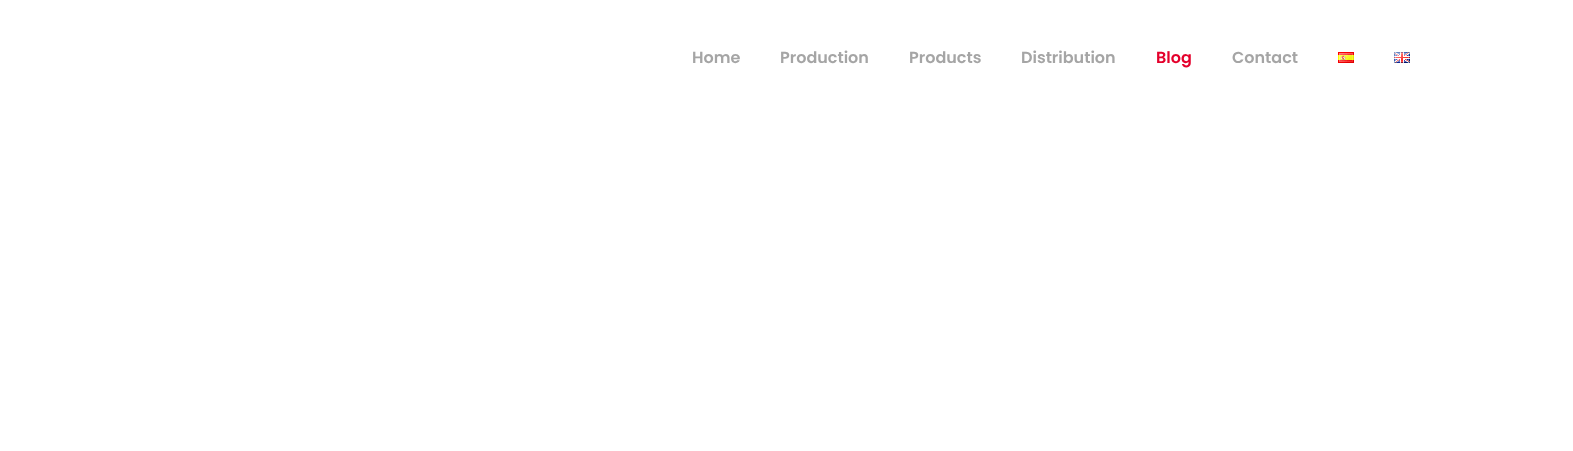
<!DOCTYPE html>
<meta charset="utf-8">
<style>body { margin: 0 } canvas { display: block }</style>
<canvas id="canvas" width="1573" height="451"></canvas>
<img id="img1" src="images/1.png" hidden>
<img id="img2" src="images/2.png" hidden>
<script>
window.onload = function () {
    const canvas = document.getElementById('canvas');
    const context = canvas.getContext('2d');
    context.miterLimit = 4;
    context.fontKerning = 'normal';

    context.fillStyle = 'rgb(255, 255, 255)';
    context.fillRect(0, 0, 1573, 451);
    context.drawImage(document.getElementById('img1'), 1338, 52, 16, 11);
    context.drawImage(document.getElementById('img2'), 1394, 52, 16, 11);
    context.font = '600 16px Poppins';
    context.fillStyle = 'rgb(165, 165, 165)';
    context.fillText('Home', 692, 63);
    context.fillText('Production', 780, 63);
    context.fillText('Products', 909, 63);
    context.fillText('Distribution', 1021, 63);
    context.fillStyle = 'rgb(228, 0, 43)';
    context.fillText('Blog', 1156, 63);
    context.fillStyle = 'rgb(165, 165, 165)';
    context.fillText('Contact', 1232, 63);
};
</script>
